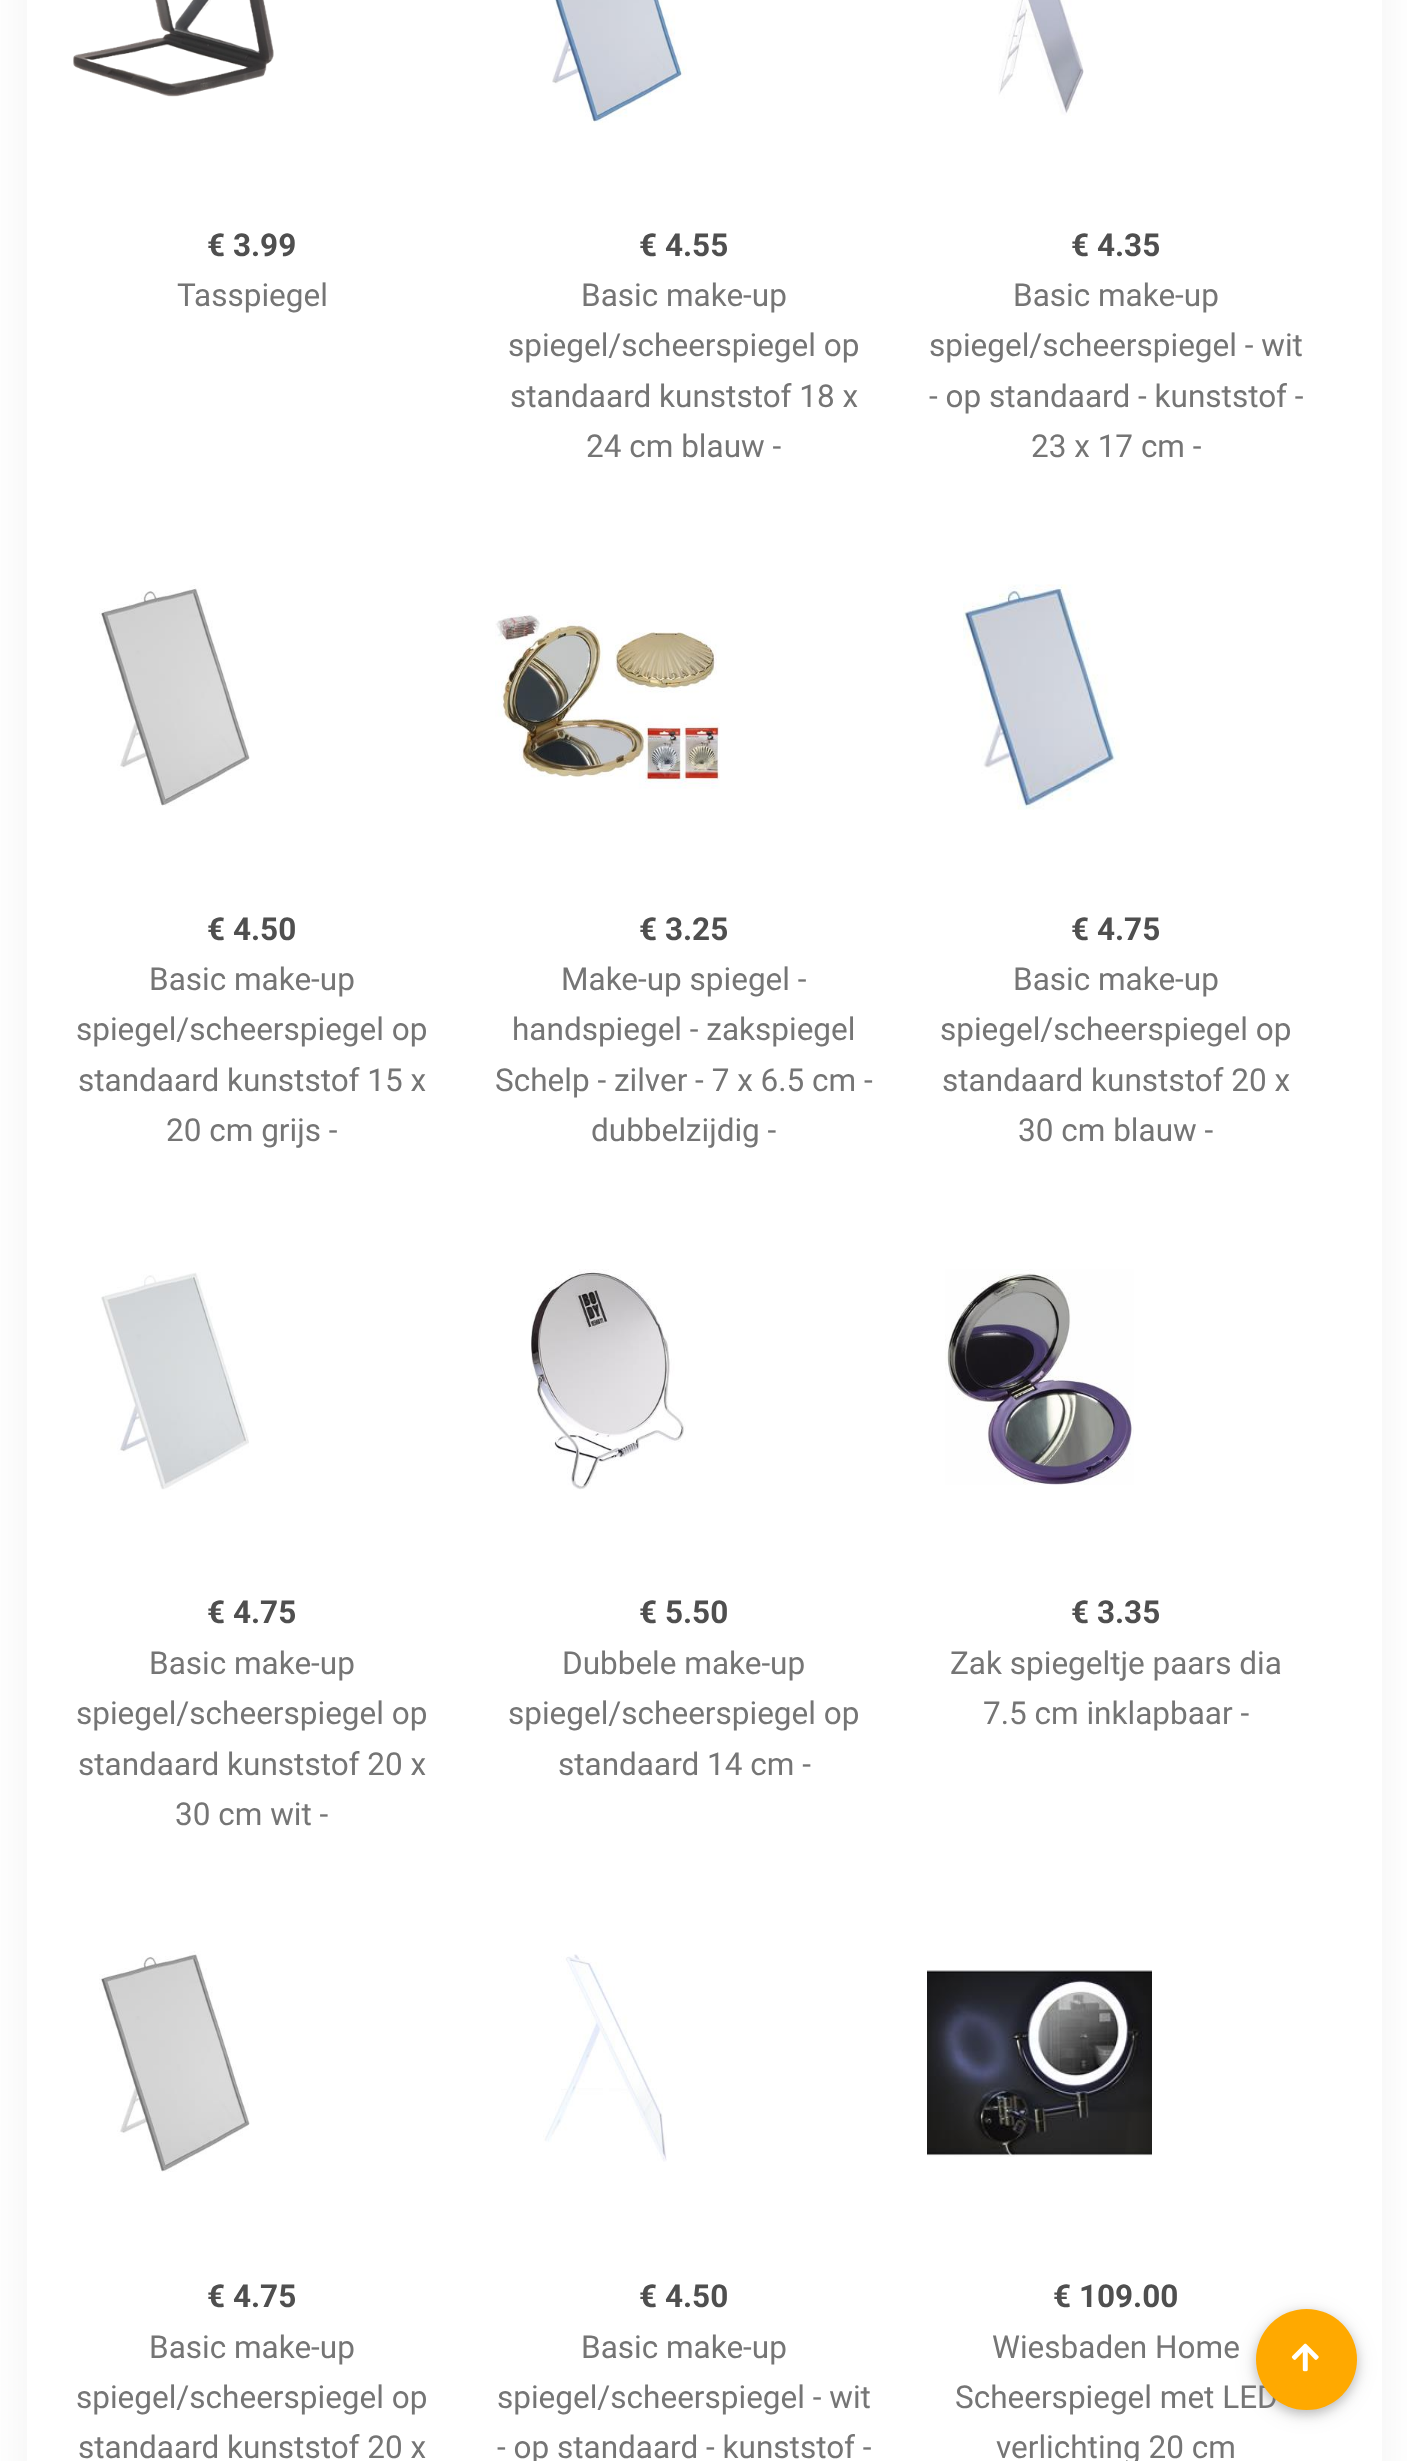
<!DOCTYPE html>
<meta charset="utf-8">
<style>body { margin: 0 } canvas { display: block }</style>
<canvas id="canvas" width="1407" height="2461"></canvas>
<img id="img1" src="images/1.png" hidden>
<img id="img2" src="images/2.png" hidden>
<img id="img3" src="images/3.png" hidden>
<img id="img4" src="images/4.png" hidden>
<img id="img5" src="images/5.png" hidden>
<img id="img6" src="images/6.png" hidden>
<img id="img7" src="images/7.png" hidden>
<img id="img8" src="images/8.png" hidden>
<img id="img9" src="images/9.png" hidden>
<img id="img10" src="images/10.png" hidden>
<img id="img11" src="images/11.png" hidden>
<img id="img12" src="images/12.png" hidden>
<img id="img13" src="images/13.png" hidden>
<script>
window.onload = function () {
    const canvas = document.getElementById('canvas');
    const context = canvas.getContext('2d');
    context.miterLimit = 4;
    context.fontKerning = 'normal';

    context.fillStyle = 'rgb(255, 255, 255)';
    context.fillRect(0, 0, 1407, 2461);
    context.fillStyle = 'rgba(0, 0, 0, 0.05)';
    context.filter = 'blur(22.5px)';
    context.beginPath();
    context.roundRect(27, -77, 1355, 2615, 9);
    context.fill();
    context.filter = 'none';
    context.fillStyle = 'rgb(255, 255, 255)';
    context.fillRect(27, 0, 1355, 2461);
    context.drawImage(document.getElementById('img1'), 73, 0, 201, 97);
    context.drawImage(document.getElementById('img2'), 552, 0, 135, 125);
    context.drawImage(document.getElementById('img3'), 998, 0, 86, 116);
    context.drawImage(document.getElementById('img4'), 99, 585, 151, 221);
    context.drawImage(document.getElementById('img5'), 495, 614, 225, 175);
    context.drawImage(document.getElementById('img6'), 963, 584, 157, 226);
    context.drawImage(document.getElementById('img7'), 100, 1272, 149, 218);
    context.drawImage(document.getElementById('img8'), 531, 1269, 155, 221);
    context.drawImage(document.getElementById('img9'), 945, 1269, 189, 216);
    context.drawImage(document.getElementById('img10'), 99, 1951, 151, 221);
    context.drawImage(document.getElementById('img11'), 543, 1954, 124, 208);
    context.drawImage(document.getElementById('img12'), 927, 1970, 225, 187);
    context.fillStyle = 'rgba(0, 0, 0, 0.1)';
    context.filter = 'blur(11px)';
    context.beginPath();
    context.roundRect(1256, 2313, 101, 101, 50.5);
    context.fill();
    context.filter = 'none';
    context.fillStyle = 'rgba(0, 0, 0, 0.2)';
    context.filter = 'blur(5.5px)';
    context.beginPath();
    context.roundRect(1256, 2313, 101, 101, 50.5);
    context.fill();
    context.filter = 'none';
    context.font = 'bold 31.5px Roboto';
    context.fillStyle = 'rgb(79, 79, 79)';
    context.fillText('€ 3.99', 207, 256);
    context.font = '31.5px Roboto';
    context.fillStyle = 'rgb(117, 117, 117)';
    context.fillText('Tasspiegel', 177, 306);
    context.font = 'bold 31.5px Roboto';
    context.fillStyle = 'rgb(79, 79, 79)';
    context.fillText('€ 4.55', 639, 256);
    context.font = '31.5px Roboto';
    context.fillStyle = 'rgb(117, 117, 117)';
    context.fillText('Basic make-up', 581, 306);
    context.fillText('spiegel/scheerspiegel op', 508, 356);
    context.fillText('standaard kunststof 18 x', 510, 407);
    context.fillText('24 cm blauw -', 586, 457);
    context.font = 'bold 31.5px Roboto';
    context.fillStyle = 'rgb(79, 79, 79)';
    context.fillText('€ 4.35', 1071, 256);
    context.font = '31.5px Roboto';
    context.fillStyle = 'rgb(117, 117, 117)';
    context.fillText('Basic make-up', 1013, 306);
    context.fillText('spiegel/scheerspiegel - wit', 929, 356);
    context.fillText('- op standaard - kunststof -', 929, 407);
    context.fillText('23 x 17 cm -', 1031, 457);
    context.font = 'bold 31.5px Roboto';
    context.fillStyle = 'rgb(79, 79, 79)';
    context.fillText('€ 4.50', 207, 940);
    context.font = '31.5px Roboto';
    context.fillStyle = 'rgb(117, 117, 117)';
    context.fillText('Basic make-up', 149, 990);
    context.fillText('spiegel/scheerspiegel op', 76, 1040);
    context.fillText('standaard kunststof 15 x', 78, 1091);
    context.fillText('20 cm grijs -', 166, 1141);
    context.font = 'bold 31.5px Roboto';
    context.fillStyle = 'rgb(79, 79, 79)';
    context.fillText('€ 3.25', 639, 940);
    context.font = '31.5px Roboto';
    context.fillStyle = 'rgb(117, 117, 117)';
    context.fillText('Make-up spiegel -', 561, 990);
    context.fillText('handspiegel - zakspiegel', 512, 1040);
    context.fillText('Schelp - zilver - 7 x 6.5 cm -', 495, 1091);
    context.fillText('dubbelzijdig -', 591, 1141);
    context.font = 'bold 31.5px Roboto';
    context.fillStyle = 'rgb(79, 79, 79)';
    context.fillText('€ 4.75', 1071, 940);
    context.font = '31.5px Roboto';
    context.fillStyle = 'rgb(117, 117, 117)';
    context.fillText('Basic make-up', 1013, 990);
    context.fillText('spiegel/scheerspiegel op', 940, 1040);
    context.fillText('standaard kunststof 20 x', 942, 1091);
    context.fillText('30 cm blauw -', 1018, 1141);
    context.font = 'bold 31.5px Roboto';
    context.fillStyle = 'rgb(79, 79, 79)';
    context.fillText('€ 4.75', 207, 1623);
    context.font = '31.5px Roboto';
    context.fillStyle = 'rgb(117, 117, 117)';
    context.fillText('Basic make-up', 149, 1674);
    context.fillText('spiegel/scheerspiegel op', 76, 1724);
    context.fillText('standaard kunststof 20 x', 78, 1775);
    context.fillText('30 cm wit -', 175, 1825);
    context.font = 'bold 31.5px Roboto';
    context.fillStyle = 'rgb(79, 79, 79)';
    context.fillText('€ 5.50', 639, 1623);
    context.font = '31.5px Roboto';
    context.fillStyle = 'rgb(117, 117, 117)';
    context.fillText('Dubbele make-up', 562, 1674);
    context.fillText('spiegel/scheerspiegel op', 508, 1724);
    context.fillText('standaard 14 cm -', 558, 1775);
    context.font = 'bold 31.5px Roboto';
    context.fillStyle = 'rgb(79, 79, 79)';
    context.fillText('€ 3.35', 1071, 1623);
    context.font = '31.5px Roboto';
    context.fillStyle = 'rgb(117, 117, 117)';
    context.fillText('Zak spiegeltje paars dia', 950, 1674);
    context.fillText('7.5 cm inklapbaar -', 983, 1724);
    context.font = 'bold 31.5px Roboto';
    context.fillStyle = 'rgb(79, 79, 79)';
    context.fillText('€ 4.75', 207, 2307);
    context.font = '31.5px Roboto';
    context.fillStyle = 'rgb(117, 117, 117)';
    context.fillText('Basic make-up', 149, 2358);
    context.fillText('spiegel/scheerspiegel op', 76, 2408);
    context.fillText('standaard kunststof 20 x', 78, 2458);
    context.font = 'bold 31.5px Roboto';
    context.fillStyle = 'rgb(79, 79, 79)';
    context.fillText('€ 4.50', 639, 2307);
    context.font = '31.5px Roboto';
    context.fillStyle = 'rgb(117, 117, 117)';
    context.fillText('Basic make-up', 581, 2358);
    context.fillText('spiegel/scheerspiegel - wit', 497, 2408);
    context.fillText('- op standaard - kunststof -', 497, 2458);
    context.font = 'bold 31.5px Roboto';
    context.fillStyle = 'rgb(79, 79, 79)';
    context.fillText('€ 109.00', 1053, 2307);
    context.font = '31.5px Roboto';
    context.fillStyle = 'rgb(117, 117, 117)';
    context.fillText('Wiesbaden Home', 992, 2358);
    context.fillText('Scheerspiegel met LED', 955, 2408);
    context.fillText('verlichting 20 cm', 996, 2458);
    context.fillStyle = 'rgb(255, 169, 0)';
    context.beginPath();
    context.arc(1306.5, 2359.5, 50.5, 0, 2 * Math.PI);
    context.fill();
    context.drawImage(document.getElementById('img13'), 1291, 2343, 28, 29);
};
</script>
